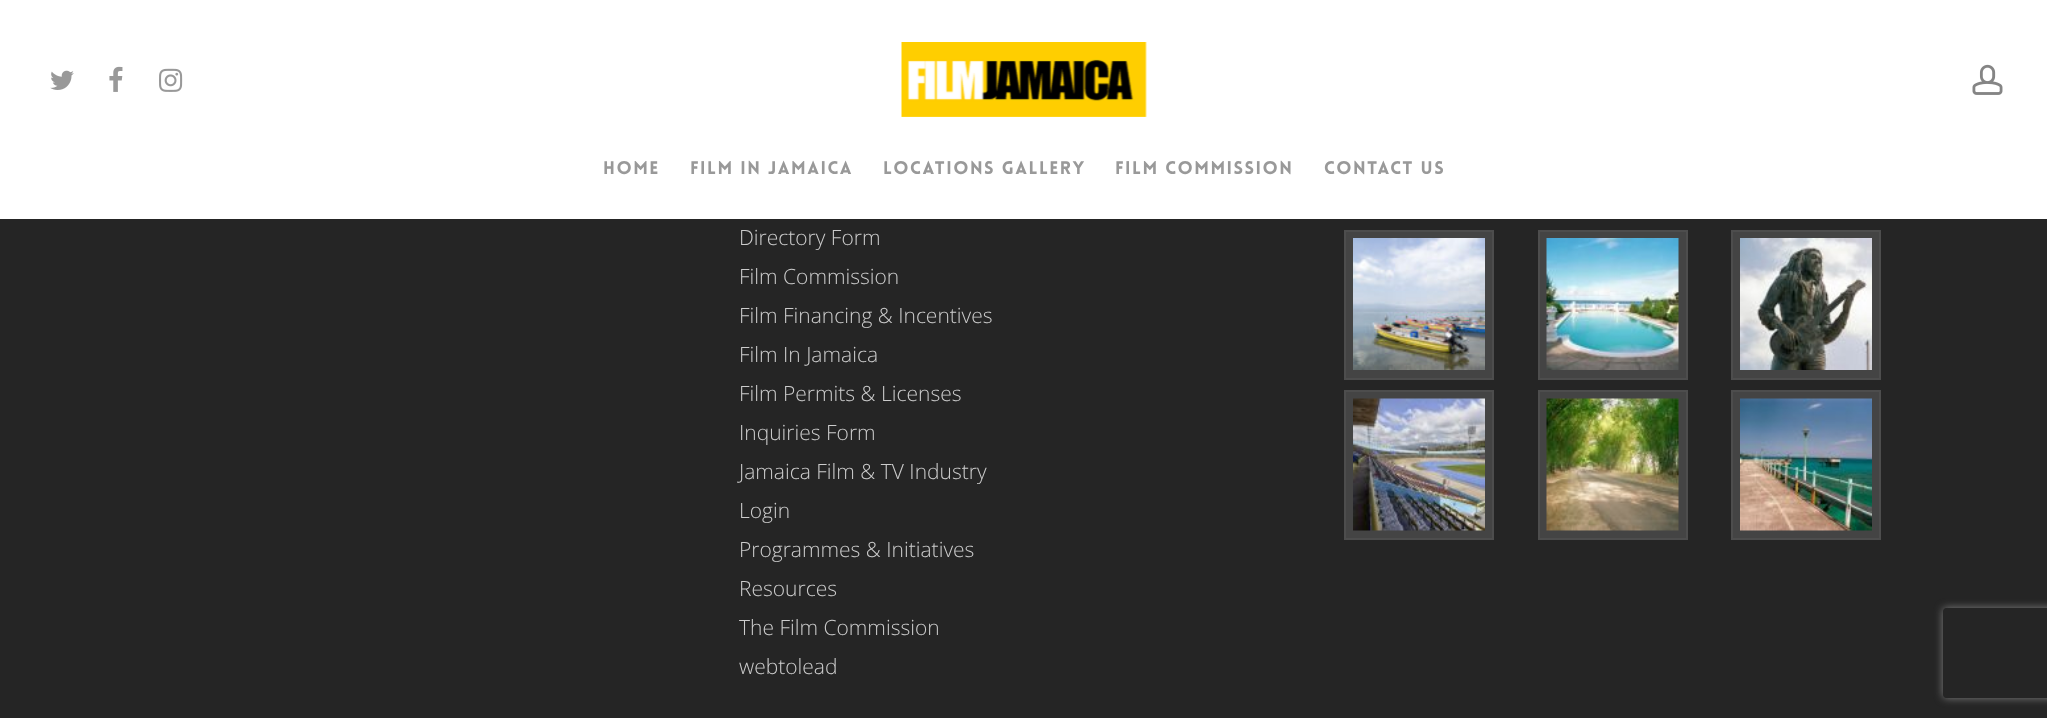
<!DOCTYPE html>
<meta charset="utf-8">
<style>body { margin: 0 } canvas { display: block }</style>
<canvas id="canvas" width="2047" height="718"></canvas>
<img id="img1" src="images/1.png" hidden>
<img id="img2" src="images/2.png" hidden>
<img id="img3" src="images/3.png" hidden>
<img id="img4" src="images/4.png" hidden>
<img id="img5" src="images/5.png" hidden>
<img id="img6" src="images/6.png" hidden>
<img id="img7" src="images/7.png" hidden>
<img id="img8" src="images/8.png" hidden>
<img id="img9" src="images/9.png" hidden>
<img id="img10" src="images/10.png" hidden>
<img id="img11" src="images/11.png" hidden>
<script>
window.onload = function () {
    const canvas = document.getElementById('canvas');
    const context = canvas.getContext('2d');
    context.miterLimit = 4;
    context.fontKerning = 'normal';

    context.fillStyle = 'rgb(37, 37, 37)';
    context.fillRect(0, 0, 2047, 718);
    context.fillStyle = 'rgb(255, 255, 255)';
    context.fillRect(0, 0, 2047, 219);
    context.drawImage(document.getElementById('img1'), 50, 70, 24, 20);
    context.drawImage(document.getElementById('img2'), 109, 66, 14, 26);
    context.drawImage(document.getElementById('img3'), 159, 68, 24, 24);
    context.drawImage(document.getElementById('img4'), 901, 42, 246, 75);
    context.drawImage(document.getElementById('img5'), 1972, 64, 31, 31);
    context.fillStyle = 'rgb(68, 68, 68)';
    context.beginPath();
    context.rect(1345, 231, 148, 148);
    context.fill();
    context.strokeStyle = 'rgb(77, 77, 77)';
    context.lineWidth = 2;
    context.stroke();
    context.drawImage(document.getElementById('img6'), 1353, 238, 132, 132);
    context.beginPath();
    context.rect(1539, 231, 148, 148);
    context.fill();
    context.stroke();
    context.drawImage(document.getElementById('img7'), 1546, 238, 133, 132);
    context.beginPath();
    context.rect(1732, 231, 148, 148);
    context.fill();
    context.stroke();
    context.drawImage(document.getElementById('img8'), 1740, 238, 132, 132);
    context.beginPath();
    context.rect(1345, 391, 148, 148);
    context.fill();
    context.stroke();
    context.drawImage(document.getElementById('img9'), 1353, 398, 132, 133);
    context.beginPath();
    context.rect(1539, 391, 148, 148);
    context.fill();
    context.stroke();
    context.drawImage(document.getElementById('img10'), 1546, 398, 133, 133);
    context.beginPath();
    context.rect(1732, 391, 148, 148);
    context.fill();
    context.stroke();
    context.drawImage(document.getElementById('img11'), 1740, 398, 132, 133);
    context.save();
    context.beginPath();
    context.moveTo(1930, 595);
    context.lineTo(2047, 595);
    context.lineTo(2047, 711);
    context.lineTo(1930, 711);
    context.closePath();
    context.moveTo(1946, 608);
    context.lineTo(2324, 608);
    context.bezierCurveTo(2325.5, 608, 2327, 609.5, 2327, 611);
    context.lineTo(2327, 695);
    context.bezierCurveTo(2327, 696.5, 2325.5, 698, 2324, 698);
    context.lineTo(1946, 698);
    context.bezierCurveTo(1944.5, 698, 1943, 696.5, 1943, 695);
    context.lineTo(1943, 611);
    context.bezierCurveTo(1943, 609.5, 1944.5, 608, 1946, 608);
    context.closePath();
    context.clip('evenodd');
    context.fillStyle = 'rgb(128, 128, 128)';
    context.filter = 'blur(4px)';
    context.beginPath();
    context.roundRect(1943, 608, 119, 90, 3);
    context.fill();
    context.filter = 'none';
    context.restore();
    context.letterSpacing = '1.5px';
    context.font = '900 18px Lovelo';
    context.fillStyle = 'rgb(153, 153, 153)';
    context.fillText('Home', 603, 174);
    context.fillText('Film in Jamaica', 690, 174);
    context.fillText('Locations Gallery', 883, 174);
    context.fillText('Film Commission', 1115, 174);
    context.fillText('Contact Us', 1324, 174);
    context.letterSpacing = '0px';
    context.font = '300 21px Open Sans';
    context.fillStyle = 'rgb(204, 204, 204)';
    context.fillText('Directory Form', 739, 245);
    context.fillText('Film Commission', 739, 284);
    context.fillText('Film Financing & Incentives', 739, 323);
    context.fillText('Film In Jamaica', 739, 362);
    context.fillText('Film Permits & Licenses', 739, 401);
    context.fillText('Inquiries Form', 739, 440);
    context.fillText('Jamaica Film & TV Industry', 739, 479);
    context.fillText('Login', 739, 518);
    context.fillText('Programmes & Initiatives', 739, 557);
    context.fillText('Resources', 739, 596);
    context.fillText('The Film Commission', 739, 635);
    context.fillText('webtolead', 739, 674);
};
</script>
